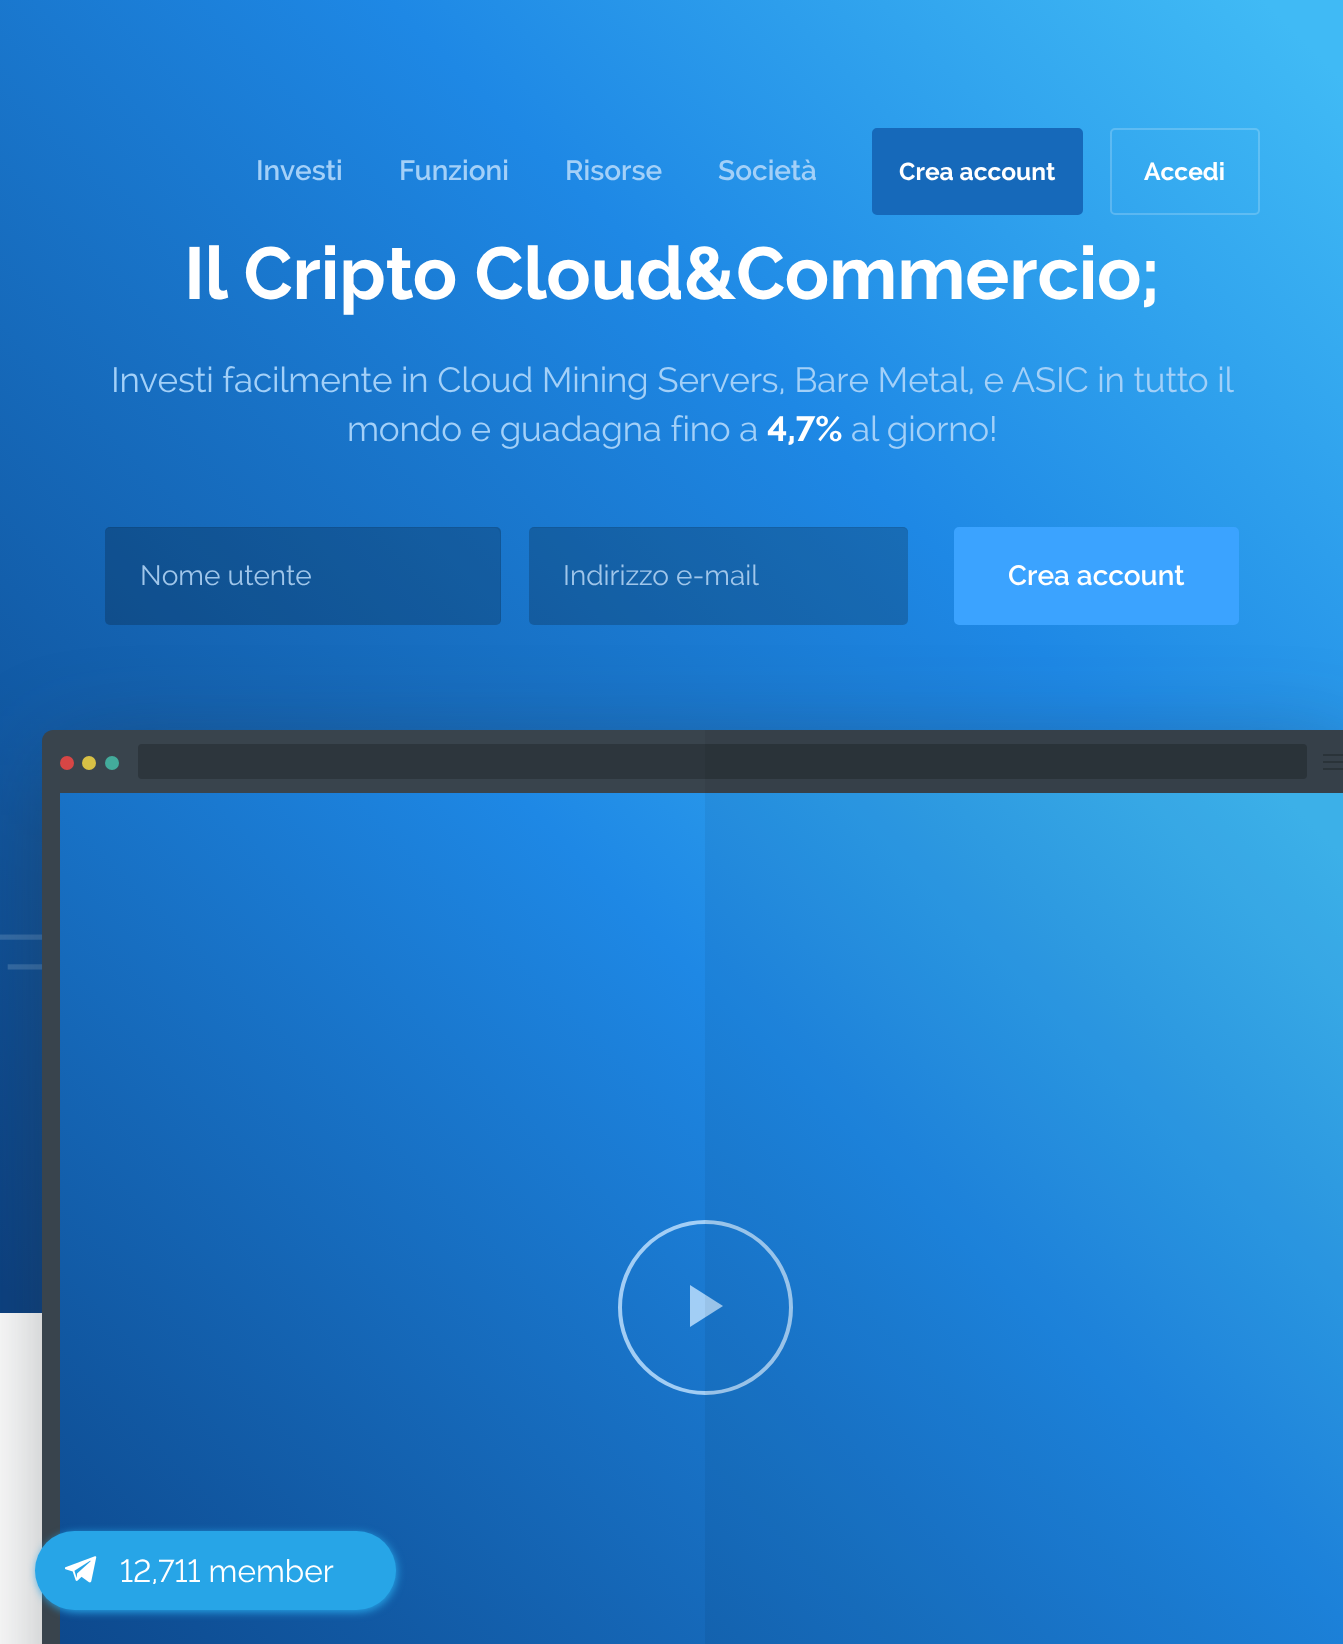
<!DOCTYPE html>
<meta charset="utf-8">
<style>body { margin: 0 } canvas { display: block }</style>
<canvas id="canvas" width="1343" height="1644"></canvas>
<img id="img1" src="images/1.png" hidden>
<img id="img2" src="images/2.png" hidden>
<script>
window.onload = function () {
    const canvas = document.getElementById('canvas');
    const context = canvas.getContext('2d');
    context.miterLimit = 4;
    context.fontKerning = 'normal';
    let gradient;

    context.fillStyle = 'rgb(255, 255, 255)';
    context.fillRect(0, 0, 1343, 1644);
    gradient = context.createLinearGradient(7.9, 1320, 1336, -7.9);
    gradient.addColorStop(0.01, 'rgb(11, 65, 130)');
    gradient.addColorStop(0.64, 'rgb(30, 136, 229)');
    gradient.addColorStop(0.97, 'rgb(64, 186, 245)');
    context.fillStyle = gradient;
    context.fillRect(0, 0, 1343, 1313);
    context.fillStyle = 'rgb(22, 105, 186)';
    context.beginPath();
    context.roundRect(873, 129, 209, 85, 4);
    context.fill();
    context.strokeStyle = 'rgb(22, 105, 186)';
    context.lineWidth = 2;
    context.stroke();
    context.beginPath();
    context.roundRect(1111, 129, 148, 85, 4);
    context.strokeStyle = 'rgba(255, 255, 255, 0.2)';
    context.stroke();
    context.fillStyle = 'rgba(0, 0, 0, 0.2)';
    context.beginPath();
    context.roundRect(105, 527, 396, 98, 5);
    context.fill();
    context.fillStyle = 'rgba(0, 0, 0, 0.07)';
    context.beginPath();
    context.moveTo(110, 528);
    context.lineTo(495, 528);
    context.bezierCurveTo(498, 528, 500, 531, 500, 534);
    context.lineTo(500, 621);
    context.lineTo(499, 624);
    context.bezierCurveTo(500, 623, 501, 621, 501, 620);
    context.lineTo(501, 532);
    context.bezierCurveTo(501, 529, 499, 527, 496, 527);
    context.lineTo(110, 527);
    context.bezierCurveTo(107, 527, 105, 529, 105, 532);
    context.lineTo(105, 534);
    context.bezierCurveTo(105, 531, 107, 528, 110, 528);
    context.closePath();
    context.fill();
    context.fillStyle = 'rgba(0, 0, 0, 0.2)';
    context.beginPath();
    context.roundRect(529, 527, 379, 98, 5);
    context.fill();
    context.fillStyle = 'rgba(0, 0, 0, 0.07)';
    context.beginPath();
    context.moveTo(534, 528);
    context.lineTo(903, 528);
    context.bezierCurveTo(906, 528, 908, 531, 908, 534);
    context.lineTo(908, 532);
    context.bezierCurveTo(908, 529, 906, 527, 903, 527);
    context.lineTo(534, 527);
    context.bezierCurveTo(532, 527, 530, 529, 529, 531);
    context.bezierCurveTo(530, 529, 532, 528, 534, 528);
    context.closePath();
    context.fill();
    context.fillStyle = 'rgb(59, 163, 255)';
    context.beginPath();
    context.roundRect(955, 528, 283, 96, 4);
    context.fill();
    context.strokeStyle = 'rgb(59, 163, 255)';
    context.stroke();
    context.drawImage(document.getElementById('img1'), 0, 934, 42, 36);
    context.fillStyle = 'rgba(37, 45, 51, 0.5)';
    context.filter = 'blur(52.5px)';
    context.beginPath();
    context.rect(60, 765, 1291, 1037);
    context.fill();
    context.filter = 'none';
    context.fillStyle = 'rgb(57, 68, 77)';
    context.beginPath();
    context.moveTo(53, 730);
    context.lineTo(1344, 730);
    context.lineTo(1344, 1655);
    context.lineTo(53, 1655);
    context.bezierCurveTo(47, 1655, 42, 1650, 42, 1644);
    context.lineTo(42, 741);
    context.bezierCurveTo(42, 735, 47, 730, 53, 730);
    context.closePath();
    context.fill();
    context.fillStyle = 'rgb(45, 54, 61)';
    context.beginPath();
    context.roundRect(138, 744, 1169, 35, 4);
    context.fill();
    context.fillRect(1323, 754, 20, 2);
    context.fillRect(1323, 761, 20, 2);
    context.fillRect(1323, 768, 20, 2);
    context.fillStyle = 'rgba(0, 0, 0, 0.05)';
    context.fillRect(705, 730, 638, 63);
    context.fillStyle = 'rgb(215, 70, 69)';
    context.beginPath();
    context.arc(67, 763, 7, 0, 2 * Math.PI);
    context.fill();
    context.fillStyle = 'rgb(215, 192, 69)';
    context.beginPath();
    context.arc(89, 763, 7, 0, 2 * Math.PI);
    context.fill();
    context.fillStyle = 'rgb(67, 171, 155)';
    context.beginPath();
    context.arc(112, 763, 7, 0, 2 * Math.PI);
    context.fill();
    gradient = context.createLinearGradient(125, 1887, 1285, 727);
    gradient.addColorStop(0.01, 'rgb(11, 65, 130)');
    gradient.addColorStop(0.64, 'rgb(30, 136, 229)');
    gradient.addColorStop(0.97, 'rgb(64, 186, 245)');
    context.fillStyle = gradient;
    context.fillRect(60, 793, 1283, 851);
    context.beginPath();
    context.arc(705.5, 1307.5, 85.5, 0, 2 * Math.PI);
    context.strokeStyle = 'rgba(196, 227, 255, 0.8)';
    context.lineWidth = 4;
    context.stroke();
    context.fillStyle = 'rgba(196, 227, 255, 0.8)';
    context.beginPath();
    context.moveTo(690, 1285);
    context.lineTo(723, 1306);
    context.lineTo(690, 1327);
    context.closePath();
    context.fill();
    context.fillStyle = 'rgba(0, 0, 0, 0.05)';
    context.fillRect(705, 793, 638, 851);
    context.fillStyle = 'rgb(39, 165, 231)';
    context.filter = 'blur(4.5px)';
    context.beginPath();
    context.roundRect(37, 1533, 360, 79, 39.5);
    context.fill();
    context.filter = 'none';
    context.beginPath();
    context.roundRect(35, 1531, 361, 79, 39.5);
    context.fill();
    context.drawImage(document.getElementById('img2'), 65, 1556, 32, 27);
    context.font = '600 28px Raleway';
    context.fillStyle = 'rgb(163, 208, 248)';
    context.fillText('Investi', 256, 180);
    context.fillText('Funzioni', 399, 180);
    context.fillText('Risorse', 565, 180);
    context.fillText('Società', 718, 180);
    context.font = 'bold 24.5px Raleway';
    context.fillStyle = 'rgb(255, 255, 255)';
    context.fillText('Crea account', 899, 180);
    context.fillText('Accedi', 1144, 180);
    context.letterSpacing = '-0.18px';
    context.font = 'bold 73.5px Raleway';
    context.fillText('Il Cripto Cloud&Commercio;', 184, 299);
    context.font = '35px Raleway';
    context.fillStyle = 'rgb(163, 208, 248)';
    context.fillText('Investi facilmente in Cloud Mining Servers, Bare Metal, e ASIC in tutto il', 111, 392);
    context.fillText('mondo e guadagna fino a', 347, 441);
    context.font = 'bold 35px Raleway';
    context.fillStyle = 'rgb(255, 255, 255)';
    context.fillText('4,7%', 767, 441);
    context.font = '35px Raleway';
    context.fillStyle = 'rgb(163, 208, 248)';
    context.fillText('al giorno!', 851, 441);
    context.letterSpacing = '0px';
    context.font = '28px Raleway';
    context.fillStyle = 'rgb(160, 198, 234)';
    context.fillText('Nome utente', 140, 585);
    context.fillText('Indirizzo e-mail', 563, 585);
    context.font = '600 28px Raleway';
    context.fillStyle = 'rgb(255, 255, 255)';
    context.fillText('Crea account', 1008, 585);
    context.font = '31.5px Raleway';
    context.fillText('12,711 member', 120, 1582);
};
</script>
